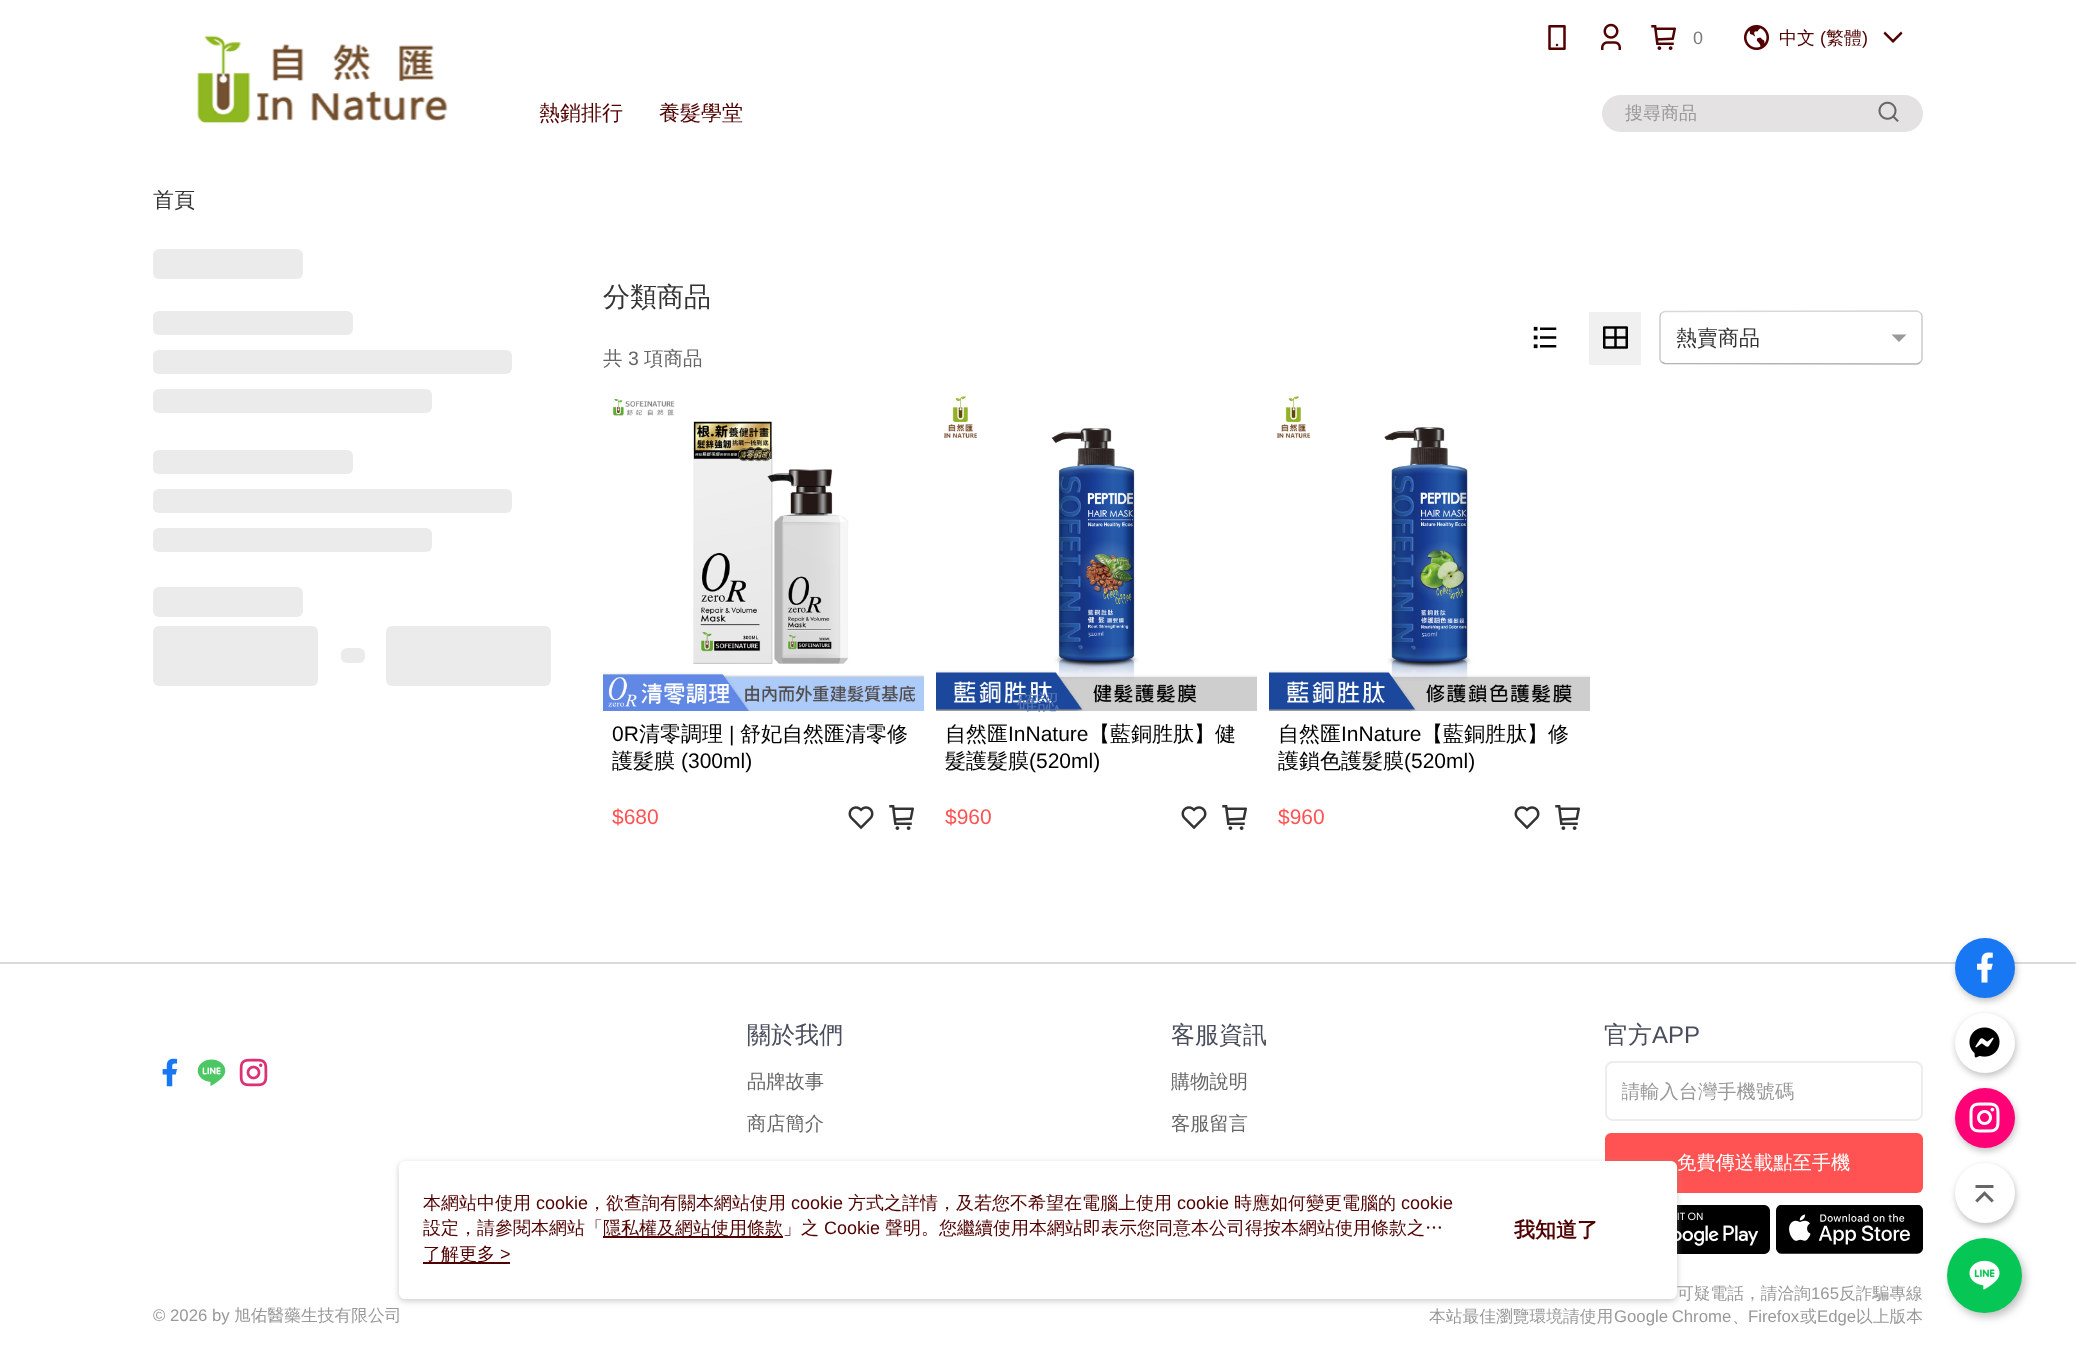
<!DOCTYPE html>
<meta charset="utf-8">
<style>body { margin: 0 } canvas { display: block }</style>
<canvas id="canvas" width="2076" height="1366"></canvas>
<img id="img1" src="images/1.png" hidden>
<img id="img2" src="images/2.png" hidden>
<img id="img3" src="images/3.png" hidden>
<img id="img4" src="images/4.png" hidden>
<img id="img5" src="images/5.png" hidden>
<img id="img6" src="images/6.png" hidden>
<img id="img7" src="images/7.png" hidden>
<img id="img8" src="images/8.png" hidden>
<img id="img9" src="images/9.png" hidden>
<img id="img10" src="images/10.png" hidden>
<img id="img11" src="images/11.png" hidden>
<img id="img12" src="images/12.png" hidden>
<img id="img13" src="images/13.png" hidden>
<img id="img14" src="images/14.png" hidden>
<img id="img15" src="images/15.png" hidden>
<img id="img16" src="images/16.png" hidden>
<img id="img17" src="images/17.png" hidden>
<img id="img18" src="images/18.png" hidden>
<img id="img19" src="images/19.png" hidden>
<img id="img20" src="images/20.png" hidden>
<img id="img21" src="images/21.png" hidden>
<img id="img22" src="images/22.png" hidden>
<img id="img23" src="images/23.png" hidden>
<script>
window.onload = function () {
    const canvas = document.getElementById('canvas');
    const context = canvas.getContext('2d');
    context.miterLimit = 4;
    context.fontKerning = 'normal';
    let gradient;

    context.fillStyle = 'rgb(255, 255, 255)';
    context.fillRect(0, 0, 2076, 1366);
    context.drawImage(document.getElementById('img1'), 197, 35, 251, 89);
    context.drawImage(document.getElementById('img2'), 1548, 25, 18, 25);
    context.drawImage(document.getElementById('img3'), 1601, 23, 20, 27);
    context.drawImage(document.getElementById('img4'), 1651, 25, 25, 25);
    context.drawImage(document.getElementById('img5'), 1744, 25, 25, 25);
    context.fillStyle = 'rgb(80, 1, 1)';
    context.beginPath();
    context.moveTo(1885, 31.5);
    context.lineTo(1883.5, 33.5);
    context.lineTo(1893, 43);
    context.lineTo(1902.5, 33.5);
    context.lineTo(1901, 31.5);
    context.lineTo(1893, 39.5);
    context.closePath();
    context.fill();
    context.fillStyle = 'rgb(228, 226, 226)';
    context.beginPath();
    context.roundRect(1602, 95, 321, 37, 18.5);
    context.fill();
    context.drawImage(document.getElementById('img6'), 1878, 101, 21, 21);
    context.fillStyle = 'rgb(218, 218, 218)';
    context.fillRect(0, 962, 2076, 2);
    context.fillStyle = 'rgba(0, 0, 0, 0.25)';
    context.filter = 'blur(3.5px)';
    context.beginPath();
    context.roundRect(1956, 941, 60, 60, 30);
    context.fill();
    context.filter = 'none';
    context.fillStyle = 'rgb(24, 119, 242)';
    context.beginPath();
    context.arc(1985, 968, 30, 0, 2 * Math.PI);
    context.fill();
    context.drawImage(document.getElementById('img7'), 1977, 952, 16, 31);
    context.fillStyle = 'rgba(0, 0, 0, 0.25)';
    context.filter = 'blur(3.5px)';
    context.beginPath();
    context.roundRect(1956, 1016, 60, 60, 30);
    context.fill();
    context.filter = 'none';
    context.fillStyle = 'rgb(255, 255, 255)';
    context.beginPath();
    context.arc(1985, 1043, 30, 0, 2 * Math.PI);
    context.fill();
    context.drawImage(document.getElementById('img8'), 1969, 1027, 31, 31);
    context.fillStyle = 'rgba(0, 0, 0, 0.25)';
    context.filter = 'blur(3.5px)';
    context.beginPath();
    context.roundRect(1956, 1091, 60, 60, 30);
    context.fill();
    context.filter = 'none';
    context.fillStyle = 'rgb(255, 0, 118)';
    context.beginPath();
    context.arc(1985, 1118, 30, 0, 2 * Math.PI);
    context.fill();
    context.drawImage(document.getElementById('img9'), 1969, 1102, 31, 31);
    context.fillStyle = 'rgba(0, 0, 0, 0.25)';
    context.filter = 'blur(3px)';
    context.beginPath();
    context.roundRect(1956, 1166, 60, 60, 30);
    context.fill();
    context.filter = 'none';
    context.fillStyle = 'rgb(255, 255, 255)';
    context.beginPath();
    context.arc(1985, 1193, 30, 0, 2 * Math.PI);
    context.fill();
    context.drawImage(document.getElementById('img10'), 1975, 1185, 19, 18);
    context.fillStyle = 'rgba(0, 0, 0, 0.25)';
    context.filter = 'blur(4px)';
    context.beginPath();
    context.roundRect(1950, 1242, 75, 75, 37.5);
    context.fill();
    context.filter = 'none';
    context.fillStyle = 'rgb(6, 199, 85)';
    context.beginPath();
    context.arc(1984.5, 1275.5, 37.5, 0, 2 * Math.PI);
    context.fill();
    context.drawImage(document.getElementById('img11'), 1969, 1260, 31, 30);
    context.fillStyle = 'rgb(235, 235, 235)';
    context.beginPath();
    context.roundRect(153, 249, 150, 30, 6);
    context.fill();
    context.beginPath();
    context.roundRect(153, 311, 200, 24, 6);
    context.fill();
    context.save();
    context.beginPath();
    context.roundRect(153, 311, 200, 24, 6);
    context.clip();
    gradient = context.createLinearGradient(-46, 323, 154, 323);
    gradient.addColorStop(0, 'rgb(235, 235, 235)');
    gradient.addColorStop(0.5, 'rgb(245, 245, 245)');
    gradient.addColorStop(1, 'rgb(235, 235, 235)');
    context.fillStyle = gradient;
    context.fillRect(153, 311, 2, 24);
    context.restore();
    context.beginPath();
    context.roundRect(153, 350, 359, 24, 6);
    context.fill();
    context.save();
    context.beginPath();
    context.roundRect(153, 350, 359, 24, 6);
    context.clip();
    gradient = context.createLinearGradient(-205, 362, 154, 362);
    gradient.addColorStop(0, 'rgb(235, 235, 235)');
    gradient.addColorStop(0.5, 'rgb(245, 245, 245)');
    gradient.addColorStop(1, 'rgb(235, 235, 235)');
    context.fillStyle = gradient;
    context.fillRect(153, 350, 2, 24);
    context.restore();
    context.beginPath();
    context.roundRect(153, 389, 279, 24, 6);
    context.fill();
    context.save();
    context.beginPath();
    context.roundRect(153, 389, 279, 24, 6);
    context.clip();
    gradient = context.createLinearGradient(-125, 401, 154, 401);
    gradient.addColorStop(0, 'rgb(235, 235, 235)');
    gradient.addColorStop(0.5, 'rgb(245, 245, 245)');
    gradient.addColorStop(1, 'rgb(235, 235, 235)');
    context.fillStyle = gradient;
    context.fillRect(153, 389, 2, 24);
    context.restore();
    context.beginPath();
    context.roundRect(153, 450, 200, 24, 6);
    context.fill();
    context.save();
    context.beginPath();
    context.roundRect(153, 450, 200, 24, 6);
    context.clip();
    gradient = context.createLinearGradient(-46, 462, 154, 462);
    gradient.addColorStop(0, 'rgb(235, 235, 235)');
    gradient.addColorStop(0.5, 'rgb(245, 245, 245)');
    gradient.addColorStop(1, 'rgb(235, 235, 235)');
    context.fillStyle = gradient;
    context.fillRect(153, 450, 2, 24);
    context.restore();
    context.beginPath();
    context.roundRect(153, 489, 359, 24, 6);
    context.fill();
    context.save();
    context.beginPath();
    context.roundRect(153, 489, 359, 24, 6);
    context.clip();
    gradient = context.createLinearGradient(-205, 501, 154, 501);
    gradient.addColorStop(0, 'rgb(235, 235, 235)');
    gradient.addColorStop(0.5, 'rgb(245, 245, 245)');
    gradient.addColorStop(1, 'rgb(235, 235, 235)');
    context.fillStyle = gradient;
    context.fillRect(153, 489, 2, 24);
    context.restore();
    context.beginPath();
    context.roundRect(153, 528, 279, 24, 6);
    context.fill();
    context.save();
    context.beginPath();
    context.roundRect(153, 528, 279, 24, 6);
    context.clip();
    gradient = context.createLinearGradient(-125, 540, 154, 540);
    gradient.addColorStop(0, 'rgb(235, 235, 235)');
    gradient.addColorStop(0.5, 'rgb(245, 245, 245)');
    gradient.addColorStop(1, 'rgb(235, 235, 235)');
    context.fillStyle = gradient;
    context.fillRect(153, 528, 2, 24);
    context.restore();
    context.beginPath();
    context.roundRect(153, 587, 150, 30, 6);
    context.fill();
    context.beginPath();
    context.roundRect(153, 626, 165, 60, 6);
    context.fill();
    context.beginPath();
    context.roundRect(341, 648, 24, 15, 6);
    context.fill();
    context.beginPath();
    context.roundRect(386, 626, 165, 60, 6);
    context.fill();
    context.drawImage(document.getElementById('img12'), 1533, 326, 24, 23);
    context.fillStyle = 'rgb(240, 240, 240)';
    context.fillRect(1589, 312, 52, 53);
    context.drawImage(document.getElementById('img13'), 1603, 326, 25, 23);
    context.beginPath();
    context.moveTo(1661.5, 313);
    context.lineTo(1664.5, 311.5);
    context.lineTo(1917, 311);
    context.bezierCurveTo(1918.5, 311.5, 1919.5, 312, 1920.5, 313);
    context.strokeStyle = 'rgb(217, 217, 217)';
    context.lineWidth = 1.5;
    context.stroke();
    context.beginPath();
    context.moveTo(1920.5, 313);
    context.bezierCurveTo(1921.5, 314, 1922, 315, 1922, 316.5);
    context.lineTo(1922, 358.5);
    context.bezierCurveTo(1922, 360, 1921.5, 361, 1920.5, 362);
    context.strokeStyle = 'rgb(204, 204, 204)';
    context.stroke();
    context.beginPath();
    context.moveTo(1920.5, 362);
    context.bezierCurveTo(1919.5, 363, 1918.5, 363.5, 1917, 364);
    context.lineTo(1664.5, 363.5);
    context.lineTo(1661.5, 362);
    context.strokeStyle = 'rgb(179, 179, 179)';
    context.stroke();
    context.beginPath();
    context.moveTo(1661.5, 362);
    context.bezierCurveTo(1660.5, 361, 1660, 360, 1660, 358.5);
    context.lineTo(1660, 316.5);
    context.bezierCurveTo(1660, 315, 1660.5, 314, 1661.5, 313);
    context.strokeStyle = 'rgb(204, 204, 204)';
    context.stroke();
    context.fillStyle = 'rgb(153, 153, 153)';
    context.beginPath();
    context.moveTo(1891.5, 334.5);
    context.lineTo(1906.5, 334.5);
    context.lineTo(1899, 342);
    context.closePath();
    context.fill();
    context.drawImage(document.getElementById('img14'), 603, 399, 321, 312);
    context.drawImage(document.getElementById('img15'), 848, 806, 26, 24);
    context.drawImage(document.getElementById('img16'), 889, 805, 25, 25);
    context.drawImage(document.getElementById('img17'), 936, 396, 321, 315);
    context.drawImage(document.getElementById('img15'), 1181, 806, 26, 24);
    context.drawImage(document.getElementById('img16'), 1222, 805, 25, 25);
    context.drawImage(document.getElementById('img18'), 1269, 396, 321, 315);
    context.drawImage(document.getElementById('img15'), 1514, 806, 26, 24);
    context.drawImage(document.getElementById('img16'), 1555, 805, 25, 25);
    context.drawImage(document.getElementById('img19'), 162, 1058, 16, 29);
    context.drawImage(document.getElementById('img20'), 197, 1059, 29, 27);
    context.drawImage(document.getElementById('img21'), 239, 1058, 29, 29);
    context.beginPath();
    context.roundRect(1606, 1062, 316, 58, 7);
    context.strokeStyle = 'rgb(237, 237, 237)';
    context.lineWidth = 2;
    context.stroke();
    context.fillStyle = 'rgb(255, 83, 83)';
    context.beginPath();
    context.roundRect(1605, 1133, 318, 60, 6);
    context.fill();
    context.drawImage(document.getElementById('img22'), 1677, 1205, 93, 49);
    context.drawImage(document.getElementById('img23'), 1776, 1205, 147, 49);
    context.fillStyle = 'rgba(151, 151, 151, 0.5)';
    context.filter = 'blur(3px)';
    context.beginPath();
    context.roundRect(399, 1163, 1278, 138, 6);
    context.fill();
    context.filter = 'none';
    context.fillStyle = 'rgb(255, 255, 255)';
    context.beginPath();
    context.roundRect(399, 1161, 1278, 138, 6);
    context.fill();
    context.fillStyle = 'rgb(80, 1, 1)';
    context.fillRect(603, 1236, 180, 2);
    context.fillRect(423, 1262, 87, 2);
    context.font = '18px Liberation Sans';
    context.fillStyle = 'rgb(122, 122, 122)';
    context.fillText('0', 1693, 44);
    context.font = '500 18px WenQuanYi Zen Hei';
    context.fillStyle = 'rgb(80, 1, 1)';
    context.fillText('中文', 1779, 44);
    context.font = '18px Liberation Sans';
    context.fillText('(', 1820, 44);
    context.font = '500 18px WenQuanYi Zen Hei';
    context.fillText('繁體', 1826, 44);
    context.font = '18px Liberation Sans';
    context.fillText(')', 1862, 44);
    context.font = '500 21px WenQuanYi Zen Hei';
    context.fillText('熱銷排行', 539, 120);
    context.fillText('養髮學堂', 659, 120);
    context.font = '500 18px WenQuanYi Zen Hei';
    context.fillStyle = 'rgb(153, 153, 153)';
    context.fillText('搜尋商品', 1625, 119);
    context.font = '500 21px WenQuanYi Zen Hei';
    context.fillStyle = 'rgb(51, 51, 51)';
    context.fillText('首頁', 153, 207);
    context.font = '500 27px WenQuanYi Zen Hei';
    context.fillText('分類商品', 603, 306);
    context.font = '500 21px WenQuanYi Zen Hei';
    context.fillText('熱賣商品', 1676, 345);
    context.font = '500 19.5px WenQuanYi Zen Hei';
    context.fillStyle = 'rgb(102, 102, 102)';
    context.fillText('共', 603, 365);
    context.font = '19.5px Liberation Sans';
    context.fillText('3', 628, 365);
    context.font = '500 19.5px WenQuanYi Zen Hei';
    context.fillText('項商品', 644, 365);
    context.font = '21px Liberation Sans';
    context.fillStyle = 'rgb(0, 0, 0)';
    context.fillText('0R', 612, 741);
    context.font = '500 21px WenQuanYi Zen Hei';
    context.fillText('清零調理', 639, 741);
    context.font = '21px Liberation Sans';
    context.fillText('|', 729, 741);
    context.font = '500 21px WenQuanYi Zen Hei';
    context.fillText('舒妃自然匯清零修', 740, 741);
    context.fillText('護髮膜', 612, 768);
    context.font = '21px Liberation Sans';
    context.fillText('(300ml)', 681, 768);
    context.fillStyle = 'rgb(255, 83, 83)';
    context.fillText('$680', 612, 824);
    context.font = '500 21px WenQuanYi Zen Hei';
    context.fillStyle = 'rgb(0, 0, 0)';
    context.fillText('自然匯', 945, 741);
    context.font = '21px Liberation Sans';
    context.fillText('InNature', 1008, 741);
    context.font = '500 21px WenQuanYi Zen Hei';
    context.fillText('【藍銅胜肽】健', 1089, 741);
    context.fillText('髮護髮膜', 945, 768);
    context.font = '21px Liberation Sans';
    context.fillText('(520ml)', 1029, 768);
    context.fillStyle = 'rgb(255, 83, 83)';
    context.fillText('$960', 945, 824);
    context.font = '500 21px WenQuanYi Zen Hei';
    context.fillStyle = 'rgb(0, 0, 0)';
    context.fillText('自然匯', 1278, 741);
    context.font = '21px Liberation Sans';
    context.fillText('InNature', 1341, 741);
    context.font = '500 21px WenQuanYi Zen Hei';
    context.fillText('【藍銅胜肽】修', 1422, 741);
    context.fillText('護鎖色護髮膜', 1278, 768);
    context.font = '21px Liberation Sans';
    context.fillText('(520ml)', 1404, 768);
    context.fillStyle = 'rgb(255, 83, 83)';
    context.fillText('$960', 1278, 824);
    context.font = '500 24px WenQuanYi Zen Hei';
    context.fillStyle = 'rgb(74, 78, 92)';
    context.fillText('關於我們', 747, 1043);
    context.font = '500 19.25px WenQuanYi Zen Hei';
    context.fillStyle = 'rgb(102, 102, 102)';
    context.fillText('品牌故事', 747, 1088);
    context.fillText('商店簡介', 747, 1130);
    context.font = '500 24px WenQuanYi Zen Hei';
    context.fillStyle = 'rgb(74, 78, 92)';
    context.fillText('客服資訊', 1171, 1043);
    context.font = '500 19.25px WenQuanYi Zen Hei';
    context.fillStyle = 'rgb(102, 102, 102)';
    context.fillText('購物說明', 1171, 1088);
    context.fillText('客服留言', 1171, 1130);
    context.font = '500 21px WenQuanYi Zen Hei';
    context.fillStyle = 'rgb(85, 116, 176)';
    context.fillText('確認', 1017, 709);
    context.save();
    context.beginPath();
    context.rect(1622, 1080, 300, 26);
    context.clip();
    context.font = '500 19.25px WenQuanYi Zen Hei';
    context.fillStyle = 'rgb(153, 153, 153)';
    context.fillText('請輸入台灣手機號碼', 1621, 1098);
    context.restore();
    context.font = '500 19.25px WenQuanYi Zen Hei';
    context.fillStyle = 'rgb(255, 255, 255)';
    context.fillText('免費傳送載點至手機', 1677, 1169);
    context.font = '500 24px WenQuanYi Zen Hei';
    context.fillStyle = 'rgb(74, 78, 92)';
    context.fillText('官方', 1604, 1043);
    context.font = '24px Liberation Sans';
    context.fillText('APP', 1652, 1043);
    context.font = '500 16.75px WenQuanYi Zen Hei';
    context.fillStyle = 'rgb(153, 153, 153)';
    context.fillText('可疑電話，請洽詢', 1677, 1299);
    context.font = '16.75px Liberation Sans';
    context.fillText('165', 1811, 1299);
    context.font = '500 16.75px WenQuanYi Zen Hei';
    context.fillText('反詐騙專線', 1839, 1299);
    context.font = '16.75px Liberation Sans';
    context.fillText('© 2026 by', 153, 1321);
    context.font = '500 16.75px WenQuanYi Zen Hei';
    context.fillText('旭佑醫藥生技有限公司', 234, 1321);
    context.fillText('本站最佳瀏覽環境請使用', 1429, 1322);
    context.wordSpacing = '-1px';
    context.font = '16.75px Liberation Sans';
    context.fillText('Google Chrome', 1614, 1322);
    context.wordSpacing = '0px';
    context.font = '500 16.75px WenQuanYi Zen Hei';
    context.fillText('、', 1732, 1322);
    context.font = '16.75px Liberation Sans';
    context.fillText('Firefox', 1748, 1322);
    context.font = '500 16.75px WenQuanYi Zen Hei';
    context.fillText('或', 1800, 1322);
    context.font = '16.75px Liberation Sans';
    context.fillText('Edge', 1817, 1322);
    context.font = '500 16.75px WenQuanYi Zen Hei';
    context.fillText('以上版本', 1856, 1322);
    context.font = '500 18px WenQuanYi Zen Hei';
    context.fillStyle = 'rgb(80, 1, 1)';
    context.fillText('本網站中使用', 423, 1209);
    context.font = '18px Liberation Sans';
    context.fillText('cookie', 536, 1209);
    context.font = '500 18px WenQuanYi Zen Hei';
    context.fillText('，欲查詢有關本網站使用', 588, 1209);
    context.font = '18px Liberation Sans';
    context.fillText('cookie', 791, 1209);
    context.font = '500 18px WenQuanYi Zen Hei';
    context.fillText('方式之詳情，及若您不希望在電腦上使用', 848, 1209);
    context.font = '18px Liberation Sans';
    context.fillText('cookie', 1177, 1209);
    context.font = '500 18px WenQuanYi Zen Hei';
    context.fillText('時應如何變更電腦的', 1234, 1209);
    context.font = '18px Liberation Sans';
    context.fillText('cookie', 1401, 1209);
    context.font = '500 18px WenQuanYi Zen Hei';
    context.fillText('設定，請參閱本網站「', 423, 1234);
    context.fillText('隱私權及網站使用條款」之', 603, 1234);
    context.font = '18px Liberation Sans';
    context.fillText('Cookie', 824, 1234);
    context.font = '500 18px WenQuanYi Zen Hei';
    context.fillText('聲明。您繼續使用本網站即表示您同意本公司得按本網站使用條款之…', 885, 1234);
    context.fillText('了解更多', 423, 1260);
    context.font = '18px Liberation Sans';
    context.fillText('>', 500, 1260);
    context.font = 'bold 21px WenQuanYi Zen Hei';
    context.fillText('我知道了', 1514, 1237);
};
</script>
